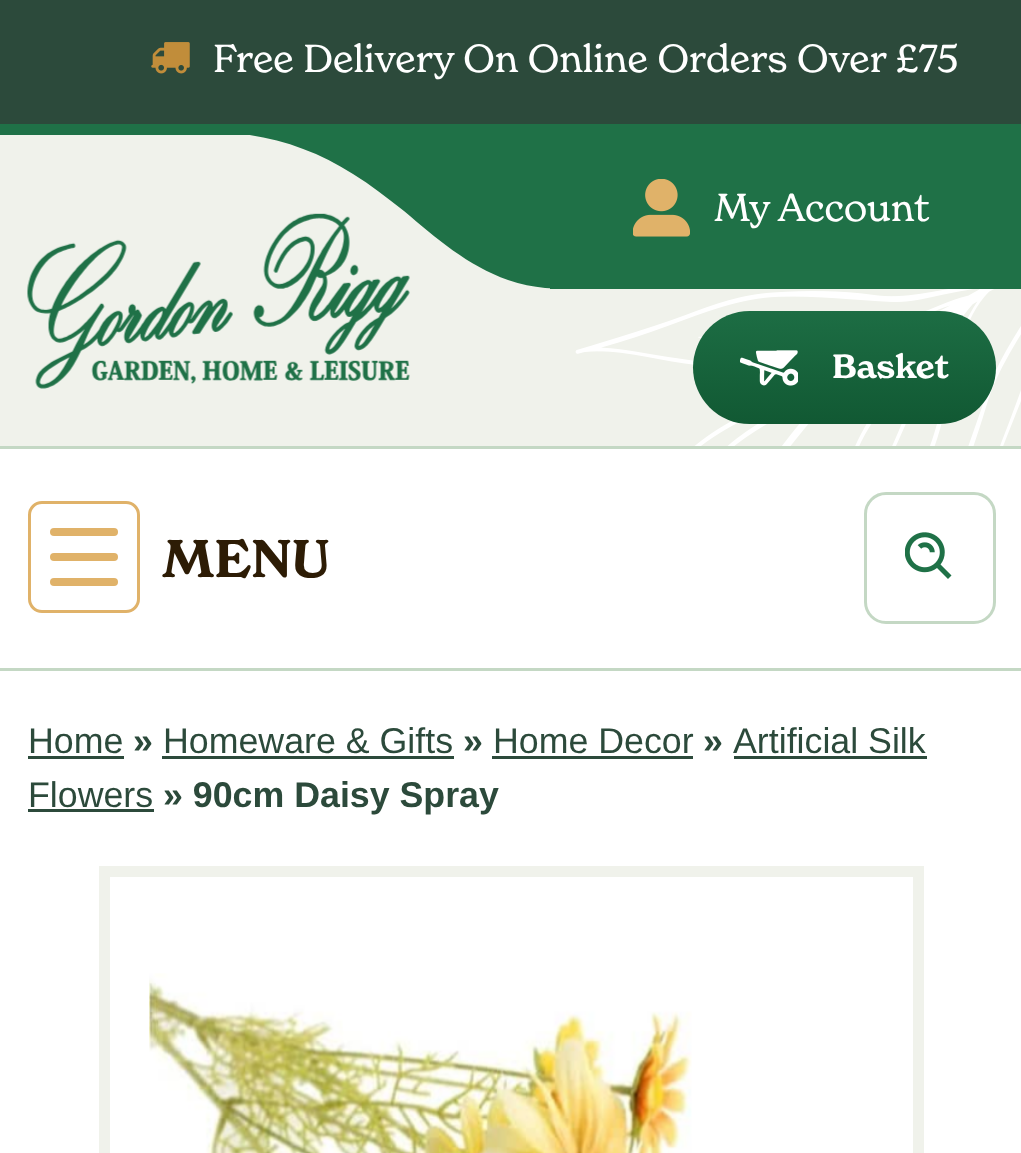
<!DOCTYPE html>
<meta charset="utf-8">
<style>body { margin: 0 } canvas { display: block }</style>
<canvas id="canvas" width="1021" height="1153"></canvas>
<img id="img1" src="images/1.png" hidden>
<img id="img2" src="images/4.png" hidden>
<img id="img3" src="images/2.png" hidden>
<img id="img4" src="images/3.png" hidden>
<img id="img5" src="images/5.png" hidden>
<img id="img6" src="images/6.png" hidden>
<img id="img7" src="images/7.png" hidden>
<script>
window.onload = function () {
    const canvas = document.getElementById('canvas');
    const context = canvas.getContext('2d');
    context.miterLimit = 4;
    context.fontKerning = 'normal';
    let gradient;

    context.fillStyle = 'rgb(255, 255, 255)';
    context.fillRect(0, 0, 1021, 1153);
    context.fillStyle = 'rgb(44, 74, 59)';
    context.fillRect(0, 0, 1021, 124);
    context.fillStyle = 'rgb(31, 113, 71)';
    context.fillRect(0, 124, 1021, 11);
    context.drawImage(document.getElementById('img1'), 151, 42, 39, 32);
    context.fillStyle = 'rgb(240, 242, 235)';
    context.fillRect(0, 135, 1021, 311);
    context.fillStyle = 'rgb(196, 216, 196)';
    context.fillRect(0, 446, 1021, 3);
    context.fillStyle = 'rgb(31, 113, 71)';
    context.fillRect(550, 135, 471, 154);
    context.drawImage(document.getElementById('img2'), 27, 213, 383, 176);
    context.save();
    context.beginPath();
    context.rect(215, 135, 368, 154);
    context.clip();
    context.beginPath();
    context.moveTo(583, 289);
    context.bezierCurveTo(556, 289, 534, 289, 508, 280);
    context.bezierCurveTo(468, 266, 436, 238, 404, 211);
    context.bezierCurveTo(387, 198, 371, 185, 353, 174);
    context.bezierCurveTo(311, 147, 264, 133, 214, 132);
    context.lineTo(214, 124);
    context.lineTo(583, 124);
    context.closePath();
    context.fill();
    context.restore();
    context.drawImage(document.getElementById('img3'), 633, 179, 57, 58);
    context.drawImage(document.getElementById('img4'), 575, 289, 446, 157);
    gradient = context.createLinearGradient(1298, 142, 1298, 593);
    gradient.addColorStop(0, 'rgb(31, 113, 71)');
    gradient.addColorStop(0.33, 'rgb(31, 113, 71)');
    gradient.addColorStop(0.67, 'rgb(15, 85, 48)');
    gradient.addColorStop(1, 'rgb(15, 85, 48)');
    context.fillStyle = gradient;
    context.beginPath();
    context.roundRect(693, 311, 303, 113, 56.5);
    context.fill();
    context.drawImage(document.getElementById('img5'), 740, 350, 58, 36);
    context.fillStyle = 'rgb(196, 216, 196)';
    context.fillRect(0, 668, 1021, 3);
    context.beginPath();
    context.roundRect(29.5, 502.5, 109, 109, 12.5);
    context.strokeStyle = 'rgb(224, 178, 105)';
    context.lineWidth = 3;
    context.stroke();
    context.fillStyle = 'rgb(224, 178, 105)';
    context.beginPath();
    context.roundRect(50, 528, 68, 8, 4);
    context.fill();
    context.beginPath();
    context.roundRect(50, 553, 68, 8, 4);
    context.fill();
    context.beginPath();
    context.roundRect(50, 578, 68, 8, 4);
    context.fill();
    context.beginPath();
    context.roundRect(865.5, 493.5, 129, 129, 20.5);
    context.strokeStyle = 'rgb(196, 216, 196)';
    context.stroke();
    context.drawImage(document.getElementById('img6'), 905, 532, 47, 47);
    context.fillStyle = 'rgb(44, 74, 59)';
    context.fillRect(28, 756, 96, 3);
    context.fillRect(162, 756, 292, 3);
    context.fillRect(492, 756, 201, 3);
    context.fillRect(734, 756, 193, 3);
    context.fillRect(28, 809, 126, 3);
    context.strokeStyle = 'rgb(240, 242, 235)';
    context.lineWidth = 11;
    context.strokeRect(104.5, 871.5, 814, 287);
    context.drawImage(document.getElementById('img7'), 149, 973, 543, 180);
    context.font = '38.5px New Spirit';
    context.fillStyle = 'rgb(255, 255, 255)';
    context.fillText('Free Delivery On Online Orders Over £75', 213, 72);
    context.fillText('My Account', 714, 221);
    context.font = '600 33px New Spirit';
    context.fillText('Basket', 832, 378);
    context.font = '600 52px New Spirit';
    context.fillStyle = 'rgb(45, 28, 5)';
    context.fillText('MENU', 162, 577);
    context.font = '35.75px Liberation Sans';
    context.fillStyle = 'rgb(44, 74, 59)';
    context.fillText('Home', 28, 753);
    context.font = 'bold 35.75px Liberation Sans';
    context.fillText('»', 133, 753);
    context.font = '35.75px Liberation Sans';
    context.fillText('Homeware & Gifts', 163, 753);
    context.font = 'bold 35.75px Liberation Sans';
    context.fillText('»', 463, 753);
    context.font = '35.75px Liberation Sans';
    context.fillText('Home Decor', 493, 753);
    context.font = 'bold 35.75px Liberation Sans';
    context.fillText('»', 703, 753);
    context.font = '35.75px Liberation Sans';
    context.fillText('Artificial Silk', 733, 753);
    context.fillText('Flowers', 28, 807);
    context.font = 'bold 35.75px Liberation Sans';
    context.fillText('» 90cm Daisy Spray', 163, 807);
};
</script>
